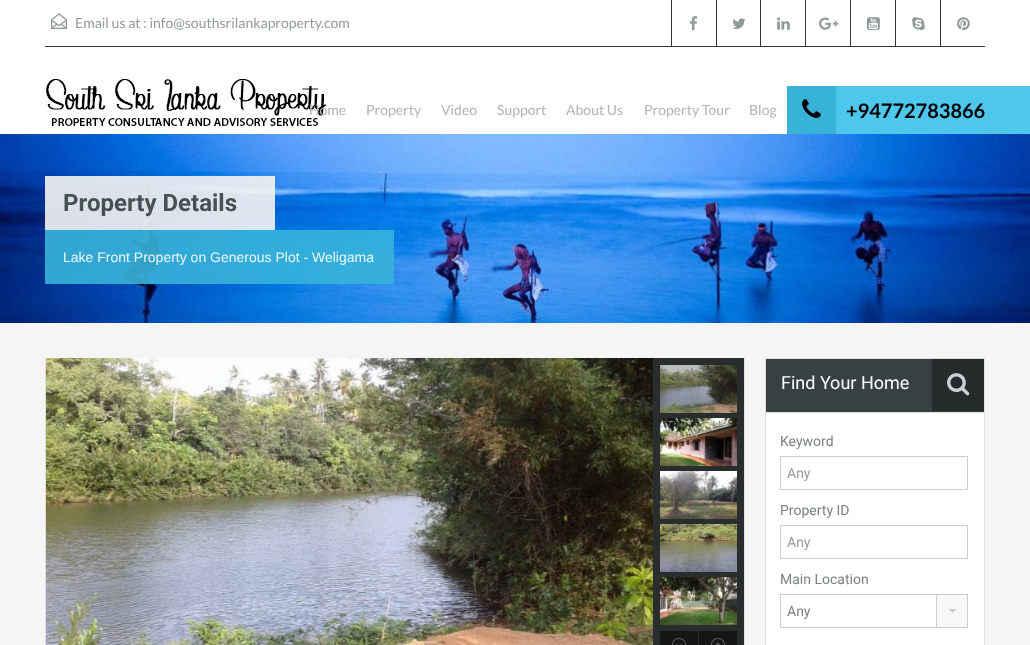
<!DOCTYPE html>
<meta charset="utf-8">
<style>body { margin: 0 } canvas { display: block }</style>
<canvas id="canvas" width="1030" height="645"></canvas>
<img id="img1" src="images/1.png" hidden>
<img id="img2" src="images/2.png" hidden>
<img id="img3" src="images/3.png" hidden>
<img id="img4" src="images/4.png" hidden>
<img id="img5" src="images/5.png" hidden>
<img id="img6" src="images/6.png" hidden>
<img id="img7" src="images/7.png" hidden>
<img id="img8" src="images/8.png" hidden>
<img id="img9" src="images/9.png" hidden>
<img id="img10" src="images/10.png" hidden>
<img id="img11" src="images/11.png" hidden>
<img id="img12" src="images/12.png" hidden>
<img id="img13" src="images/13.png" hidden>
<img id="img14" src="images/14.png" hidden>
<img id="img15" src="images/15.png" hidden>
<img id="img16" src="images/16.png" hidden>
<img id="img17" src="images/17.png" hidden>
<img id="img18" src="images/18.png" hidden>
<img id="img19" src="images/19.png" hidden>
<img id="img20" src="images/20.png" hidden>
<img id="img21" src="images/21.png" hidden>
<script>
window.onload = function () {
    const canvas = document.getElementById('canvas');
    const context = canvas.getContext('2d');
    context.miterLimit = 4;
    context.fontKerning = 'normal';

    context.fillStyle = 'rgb(245, 245, 245)';
    context.fillRect(0, 0, 1030, 645);
    context.fillStyle = 'rgb(255, 255, 255)';
    context.fillRect(0, 0, 1030, 134);
    context.fillStyle = 'rgb(52, 58, 59)';
    context.fillRect(45, 46, 940, 1);
    context.drawImage(document.getElementById('img1'), 51, 13, 16, 16);
    context.fillRect(671, 0, 1, 46);
    context.drawImage(document.getElementById('img2'), 689, 16, 8, 15);
    context.fillRect(716, 0, 1, 46);
    context.drawImage(document.getElementById('img3'), 732, 18, 14, 11);
    context.fillRect(760, 0, 1, 46);
    context.drawImage(document.getElementById('img4'), 777, 17, 13, 13);
    context.fillRect(805, 0, 1, 46);
    context.drawImage(document.getElementById('img5'), 819, 17, 20, 13);
    context.fillRect(850, 0, 1, 46);
    context.drawImage(document.getElementById('img6'), 867, 17, 13, 14);
    context.fillRect(895, 0, 1, 46);
    context.drawImage(document.getElementById('img7'), 912, 17, 13, 13);
    context.fillRect(940, 0, 1, 46);
    context.drawImage(document.getElementById('img8'), 957, 17, 13, 13);
    context.drawImage(document.getElementById('img9'), 46, 79, 281, 47);
    context.fillStyle = 'rgb(77, 199, 236)';
    context.fillRect(836, 86, 194, 48);
    context.fillStyle = 'rgb(55, 179, 217)';
    context.fillRect(787, 86, 49, 48);
    context.drawImage(document.getElementById('img10'), 802, 99, 19, 19);
    context.drawImage(document.getElementById('img11'), 0, 134, 1030, 189);
    context.fillStyle = 'rgba(245, 244, 243, 0.9)';
    context.fillRect(45, 176, 230, 54);
    context.fillStyle = 'rgba(55, 179, 217, 0.9)';
    context.fillRect(45, 230, 349, 54);
    context.fillStyle = 'rgb(222, 222, 222)';
    context.fillRect(744, 358, 1, 287);
    context.fillRect(45, 358, 1, 287);
    context.fillStyle = 'rgb(41, 45, 45)';
    context.fillRect(653, 358, 91, 287);
    context.drawImage(document.getElementById('img12'), 46, 358, 607, 287);
    context.drawImage(document.getElementById('img13'), 660, 365, 77, 48);
    context.drawImage(document.getElementById('img14'), 660, 418, 77, 48);
    context.drawImage(document.getElementById('img15'), 660, 471, 77, 48);
    context.drawImage(document.getElementById('img16'), 660, 524, 77, 48);
    context.drawImage(document.getElementById('img17'), 660, 577, 77, 48);
    context.fillStyle = 'rgb(20, 22, 22)';
    context.fillRect(660, 631, 38, 14);
    context.drawImage(document.getElementById('img18'), 671, 637, 16, 8);
    context.fillRect(699, 631, 38, 14);
    context.drawImage(document.getElementById('img19'), 710, 637, 16, 8);
    context.fillStyle = 'rgb(255, 255, 255)';
    context.fillRect(766, 413, 218, 232);
    context.strokeStyle = 'rgb(222, 222, 222)';
    context.strokeRect(765.5, 358.5, 219, 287);
    context.fillStyle = 'rgb(57, 64, 65)';
    context.fillRect(766, 359, 218, 53);
    context.fillStyle = 'rgb(222, 222, 222)';
    context.fillRect(766, 412, 218, 1);
    context.fillStyle = 'rgb(37, 42, 43)';
    context.fillRect(932, 359, 52, 52);
    context.drawImage(document.getElementById('img20'), 947, 373, 23, 23);
    context.strokeStyle = 'rgb(205, 205, 205)';
    context.strokeRect(780.5, 456.5, 187, 33);
    context.strokeRect(780.5, 525.5, 187, 33);
    context.drawImage(document.getElementById('img21'), 936, 595, 31, 32);
    context.strokeRect(780.5, 594.5, 187, 33);
    context.font = '14px Lato';
    context.fillStyle = 'rgb(146, 154, 155)';
    context.fillText('Email us at : info@southsrilankaproperty.com', 75, 28);
    context.fillStyle = 'rgb(175, 180, 181)';
    context.fillText('Home', 309, 115);
    context.fillText('Property', 366, 115);
    context.fillText('Video', 441, 115);
    context.fillText('Support', 497, 115);
    context.fillText('About Us', 566, 115);
    context.fillText('Property Tour', 644, 115);
    context.fillText('Blog', 749, 115);
    context.font = 'bold 20px Lato';
    context.fillStyle = 'rgb(0, 0, 0)';
    context.fillText('+94772783866', 846, 118);
    context.font = 'bold 24px Roboto';
    context.fillStyle = 'rgb(73, 80, 82)';
    context.fillText('Property Details', 63, 211);
    context.font = '14px Liberation Sans';
    context.fillStyle = 'rgb(235, 247, 251)';
    context.fillText('Lake Front Property on Generous Plot - Weligama', 63, 262);
    context.font = '18px Roboto';
    context.fillStyle = 'rgb(255, 255, 255)';
    context.fillText('Find Your Home', 781, 389);
    context.font = '14px Roboto';
    context.fillStyle = 'rgb(123, 130, 131)';
    context.fillText('Keyword', 780, 446);
    context.fillStyle = 'rgb(153, 153, 153)';
    context.fillText('Any', 787, 478);
    context.fillStyle = 'rgb(123, 130, 131)';
    context.fillText('Property ID', 780, 515);
    context.fillStyle = 'rgb(153, 153, 153)';
    context.fillText('Any', 787, 547);
    context.fillStyle = 'rgb(123, 130, 131)';
    context.fillText('Main Location', 780, 584);
    context.fillText('Any', 787, 616);
};
</script>
